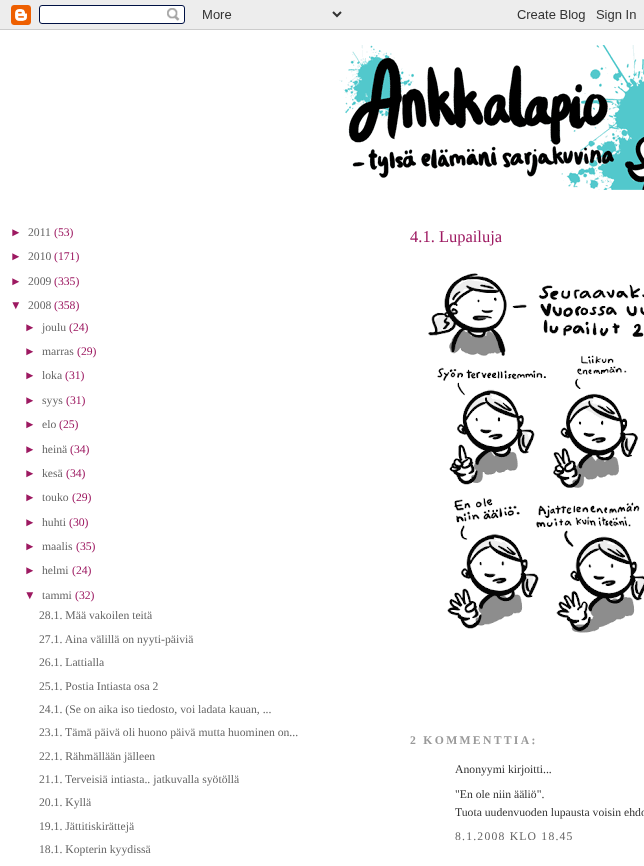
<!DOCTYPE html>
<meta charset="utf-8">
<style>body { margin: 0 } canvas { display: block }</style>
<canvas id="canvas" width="644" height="866"></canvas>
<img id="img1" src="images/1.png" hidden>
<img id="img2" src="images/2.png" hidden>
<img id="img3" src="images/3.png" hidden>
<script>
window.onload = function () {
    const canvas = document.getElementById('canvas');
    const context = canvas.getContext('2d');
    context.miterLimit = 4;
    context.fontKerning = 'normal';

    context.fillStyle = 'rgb(255, 255, 255)';
    context.fillRect(0, 0, 644, 866);
    context.drawImage(document.getElementById('img1'), 0, 0, 644, 30);
    context.drawImage(document.getElementById('img2'), 339, 45, 305, 145);
    context.drawImage(document.getElementById('img3'), 428, 273, 216, 360);
    context.font = '11.7px Liberation Sans';
    context.fillStyle = 'rgb(157, 25, 97)';
    context.fillText('►', 10, 236);
    context.font = '11.7px Liberation Serif';
    context.fillStyle = 'rgb(102, 102, 102)';
    context.fillText('2011', 28, 236);
    context.fillStyle = 'rgb(157, 25, 97)';
    context.fillText('(53)', 54, 236);
    context.font = '11.7px Liberation Sans';
    context.fillText('►', 10, 260);
    context.font = '11.7px Liberation Serif';
    context.fillStyle = 'rgb(102, 102, 102)';
    context.fillText('2010', 28, 260);
    context.fillStyle = 'rgb(157, 25, 97)';
    context.fillText('(171)', 54, 260);
    context.font = '11.7px Liberation Sans';
    context.fillText('►', 10, 285);
    context.font = '11.7px Liberation Serif';
    context.fillStyle = 'rgb(102, 102, 102)';
    context.fillText('2009', 28, 285);
    context.fillStyle = 'rgb(157, 25, 97)';
    context.fillText('(335)', 54, 285);
    context.font = '11.7px Liberation Sans';
    context.fillText('▼', 10, 309);
    context.font = '11.7px Liberation Serif';
    context.fillStyle = 'rgb(102, 102, 102)';
    context.fillText('2008', 28, 309);
    context.fillStyle = 'rgb(157, 25, 97)';
    context.fillText('(358)', 54, 309);
    context.font = '11.7px Liberation Sans';
    context.fillText('►', 24, 331);
    context.font = '11.7px Liberation Serif';
    context.fillStyle = 'rgb(102, 102, 102)';
    context.fillText('joulu', 42, 331);
    context.fillStyle = 'rgb(157, 25, 97)';
    context.fillText('(24)', 69, 331);
    context.font = '11.7px Liberation Sans';
    context.fillText('►', 24, 355);
    context.font = '11.7px Liberation Serif';
    context.fillStyle = 'rgb(102, 102, 102)';
    context.fillText('marras', 42, 355);
    context.fillStyle = 'rgb(157, 25, 97)';
    context.fillText('(29)', 77, 355);
    context.font = '11.7px Liberation Sans';
    context.fillText('►', 24, 379);
    context.font = '11.7px Liberation Serif';
    context.fillStyle = 'rgb(102, 102, 102)';
    context.fillText('loka', 42, 379);
    context.fillStyle = 'rgb(157, 25, 97)';
    context.fillText('(31)', 65, 379);
    context.font = '11.7px Liberation Sans';
    context.fillText('►', 24, 404);
    context.font = '11.7px Liberation Serif';
    context.fillStyle = 'rgb(102, 102, 102)';
    context.fillText('syys', 42, 404);
    context.fillStyle = 'rgb(157, 25, 97)';
    context.fillText('(31)', 66, 404);
    context.font = '11.7px Liberation Sans';
    context.fillText('►', 24, 428);
    context.font = '11.7px Liberation Serif';
    context.fillStyle = 'rgb(102, 102, 102)';
    context.fillText('elo', 42, 428);
    context.fillStyle = 'rgb(157, 25, 97)';
    context.fillText('(25)', 59, 428);
    context.font = '11.7px Liberation Sans';
    context.fillText('►', 24, 453);
    context.font = '11.7px Liberation Serif';
    context.fillStyle = 'rgb(102, 102, 102)';
    context.fillText('heinä', 42, 453);
    context.fillStyle = 'rgb(157, 25, 97)';
    context.fillText('(34)', 70, 453);
    context.font = '11.7px Liberation Sans';
    context.fillText('►', 24, 477);
    context.font = '11.7px Liberation Serif';
    context.fillStyle = 'rgb(102, 102, 102)';
    context.fillText('kesä', 42, 477);
    context.fillStyle = 'rgb(157, 25, 97)';
    context.fillText('(34)', 66, 477);
    context.font = '11.7px Liberation Sans';
    context.fillText('►', 24, 501);
    context.font = '11.7px Liberation Serif';
    context.fillStyle = 'rgb(102, 102, 102)';
    context.fillText('touko', 42, 501);
    context.fillStyle = 'rgb(157, 25, 97)';
    context.fillText('(29)', 72, 501);
    context.font = '11.7px Liberation Sans';
    context.fillText('►', 24, 526);
    context.font = '11.7px Liberation Serif';
    context.fillStyle = 'rgb(102, 102, 102)';
    context.fillText('huhti', 42, 526);
    context.fillStyle = 'rgb(157, 25, 97)';
    context.fillText('(30)', 69, 526);
    context.font = '11.7px Liberation Sans';
    context.fillText('►', 24, 550);
    context.font = '11.7px Liberation Serif';
    context.fillStyle = 'rgb(102, 102, 102)';
    context.fillText('maalis', 42, 550);
    context.fillStyle = 'rgb(157, 25, 97)';
    context.fillText('(35)', 76, 550);
    context.font = '11.7px Liberation Sans';
    context.fillText('►', 24, 574);
    context.font = '11.7px Liberation Serif';
    context.fillStyle = 'rgb(102, 102, 102)';
    context.fillText('helmi', 42, 574);
    context.fillStyle = 'rgb(157, 25, 97)';
    context.fillText('(24)', 72, 574);
    context.font = '11.7px Liberation Sans';
    context.fillText('▼', 24, 599);
    context.font = '11.7px Liberation Serif';
    context.fillStyle = 'rgb(102, 102, 102)';
    context.fillText('tammi', 42, 599);
    context.fillStyle = 'rgb(157, 25, 97)';
    context.fillText('(32)', 75, 599);
    context.fillStyle = 'rgb(102, 102, 102)';
    context.fillText('28.1. Mää vakoilen teitä', 39, 619);
    context.fillText('27.1. Aina välillä on nyyti-päiviä', 39, 643);
    context.fillText('26.1. Lattialla', 39, 666);
    context.fillText('25.1. Postia Intiasta osa 2', 39, 690);
    context.fillText('24.1. (Se on aika iso tiedosto, voi ladata kauan, ...', 39, 713);
    context.fillText('23.1. Tämä päivä oli huono päivä mutta huominen on...', 39, 736);
    context.fillText('22.1. Rähmällään jälleen', 39, 760);
    context.fillText('21.1. Terveisiä intiasta.. jatkuvalla syötöllä', 39, 783);
    context.fillText('20.1. Kyllä', 39, 806);
    context.fillText('19.1. Jättitiskirättejä', 39, 830);
    context.fillText('18.1. Kopterin kyydissä', 39, 853);
    context.font = '16.5px Liberation Serif';
    context.fillStyle = 'rgb(157, 25, 97)';
    context.fillText('4.1. Lupailuja', 410, 242);
    context.letterSpacing = '2.3px';
    context.font = 'bold 11.7px Liberation Serif';
    context.fillStyle = 'rgb(153, 153, 153)';
    context.fillText('2 KOMMENTTIA:', 410, 744);
    context.letterSpacing = '0px';
    context.font = '11.7px Liberation Serif';
    context.fillStyle = 'rgb(51, 51, 51)';
    context.fillText('Anonyymi kirjoitti...', 455, 773);
    context.fillText('"En ole niin ääliö".', 455, 798);
    context.fillText('Tuota uudenvuoden lupausta voisin ehdo', 455, 816);
    context.letterSpacing = '1.2px';
    context.fillStyle = 'rgb(102, 102, 102)';
    context.fillText('8.1.2008 KLO 18.45', 455, 840);
};
</script>
